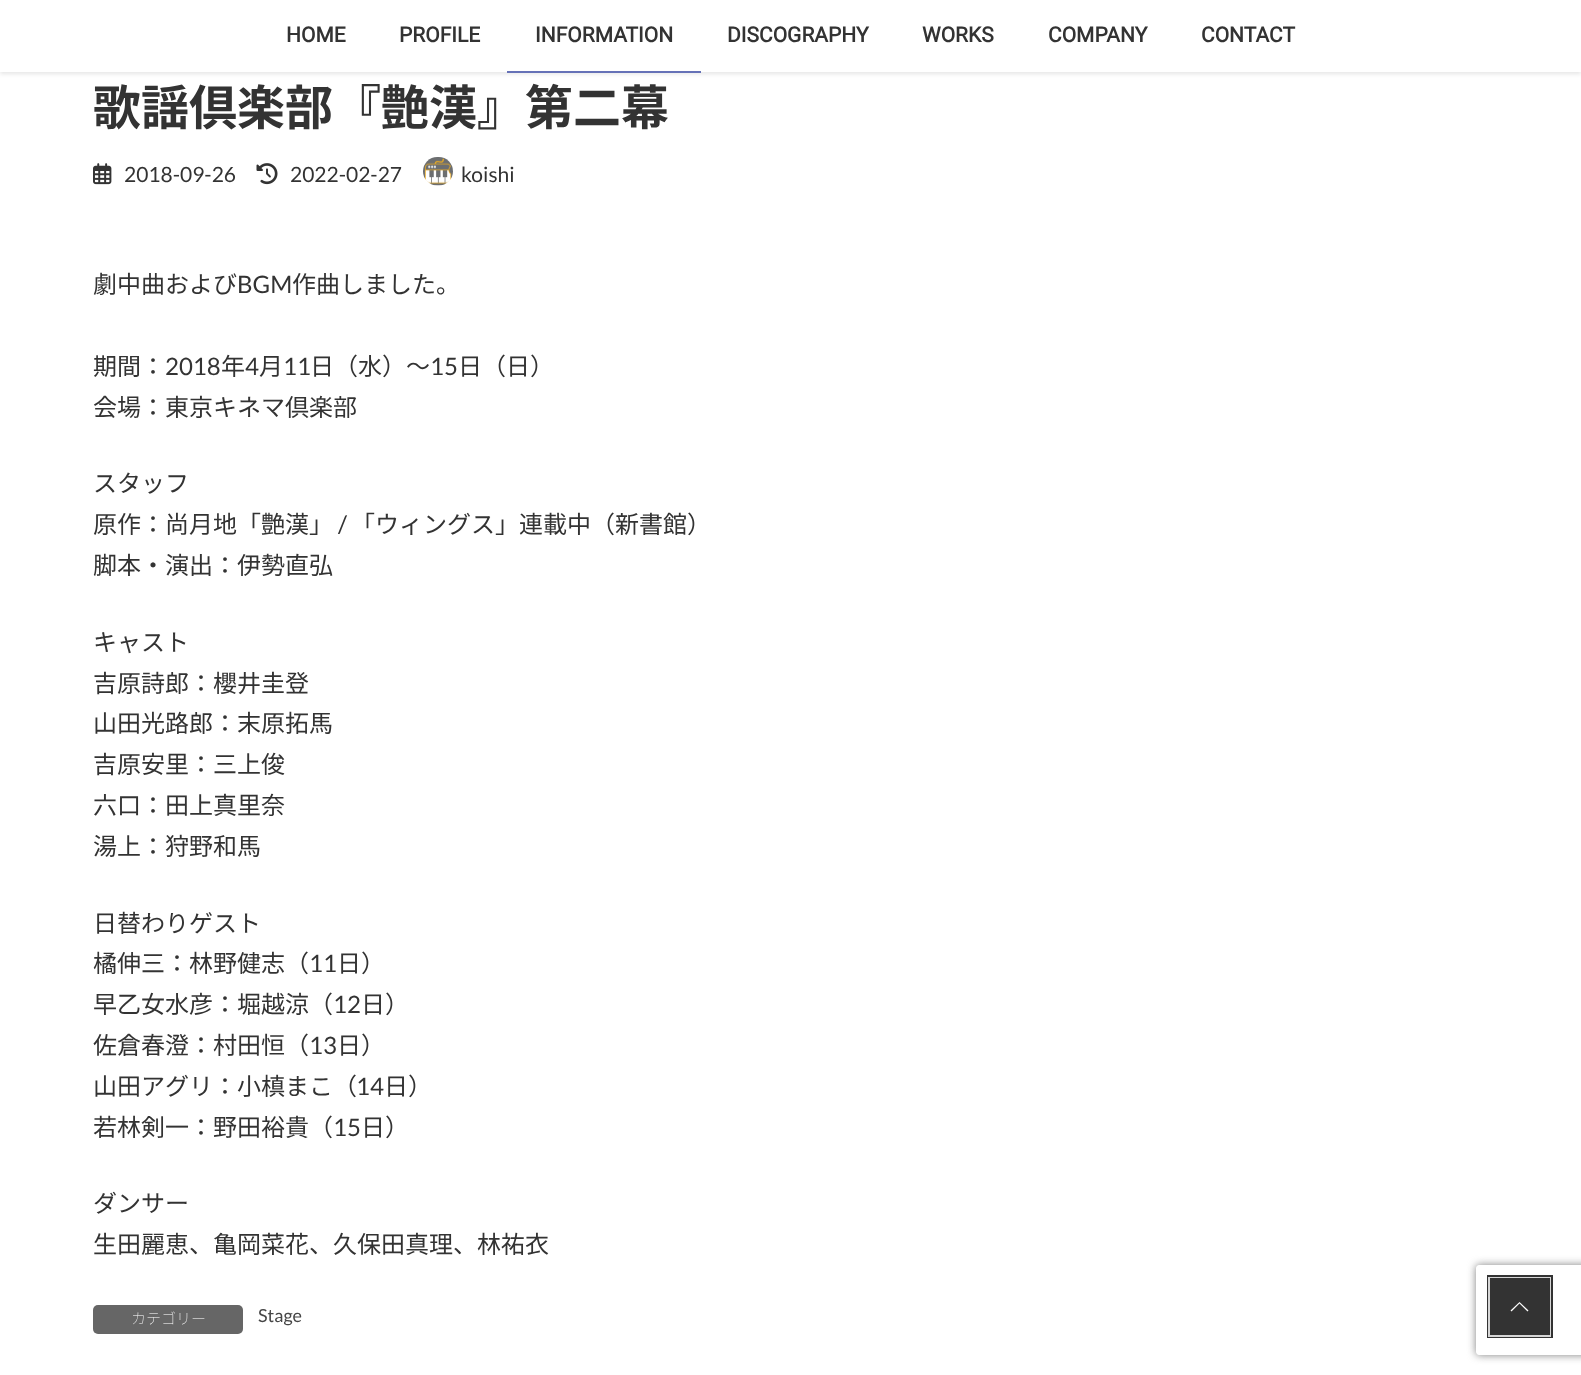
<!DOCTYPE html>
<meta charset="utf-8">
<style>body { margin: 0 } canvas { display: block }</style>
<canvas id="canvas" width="1581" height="1375"></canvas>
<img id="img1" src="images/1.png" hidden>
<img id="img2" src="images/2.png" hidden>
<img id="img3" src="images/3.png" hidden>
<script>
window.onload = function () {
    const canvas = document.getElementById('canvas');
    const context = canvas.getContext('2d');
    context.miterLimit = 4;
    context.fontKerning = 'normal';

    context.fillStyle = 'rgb(255, 255, 255)';
    context.fillRect(0, 0, 1581, 1375);
    context.fillStyle = 'rgba(0, 0, 0, 0.1)';
    context.filter = 'blur(2px)';
    context.beginPath();
    context.rect(0, 2, 1581, 72);
    context.fill();
    context.filter = 'none';
    context.fillStyle = 'rgb(255, 255, 255)';
    context.fillRect(0, 0, 1581, 72);
    context.fillStyle = 'rgb(102, 114, 183)';
    context.fillRect(507, 71, 194, 2);
    context.drawImage(document.getElementById('img1'), 93, 163, 19, 22);
    context.drawImage(document.getElementById('img2'), 256, 163, 22, 22);
    context.drawImage(document.getElementById('img3'), 423, 157, 30, 29);
    context.fillStyle = 'rgb(102, 102, 102)';
    context.beginPath();
    context.roundRect(93, 1305, 150, 29, 5);
    context.fill();
    context.save();
    context.beginPath();
    context.moveTo(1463, 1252);
    context.lineTo(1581, 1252);
    context.lineTo(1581, 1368);
    context.lineTo(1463, 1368);
    context.closePath();
    context.moveTo(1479, 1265);
    context.lineTo(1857, 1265);
    context.bezierCurveTo(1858.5, 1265, 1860, 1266.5, 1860, 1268);
    context.lineTo(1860, 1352);
    context.bezierCurveTo(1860, 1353.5, 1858.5, 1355, 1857, 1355);
    context.lineTo(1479, 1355);
    context.bezierCurveTo(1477.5, 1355, 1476, 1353.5, 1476, 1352);
    context.lineTo(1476, 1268);
    context.bezierCurveTo(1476, 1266.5, 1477.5, 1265, 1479, 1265);
    context.closePath();
    context.clip('evenodd');
    context.fillStyle = 'rgb(128, 128, 128)';
    context.filter = 'blur(4px)';
    context.beginPath();
    context.roundRect(1476, 1265, 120, 90, 3);
    context.fill();
    context.filter = 'none';
    context.restore();
    context.strokeStyle = 'rgb(51, 51, 51)';
    context.lineWidth = 3;
    context.strokeRect(1488.5, 1276.5, 63, 60);
    context.strokeStyle = 'rgba(255, 255, 255, 0.8)';
    context.lineWidth = 2;
    context.strokeRect(1489, 1278, 61, 58);
    context.fillStyle = 'rgb(51, 51, 51)';
    context.fillRect(1490, 1278, 60, 57);
    context.fillStyle = 'rgb(255, 255, 255)';
    context.beginPath();
    context.moveTo(1528.5, 1310.5);
    context.lineTo(1527.5, 1311.5);
    context.lineTo(1519.5, 1303.5);
    context.lineTo(1511.5, 1311.5);
    context.lineTo(1510.5, 1310.5);
    context.lineTo(1519.5, 1302);
    context.closePath();
    context.fill();
    context.font = 'bold 21px Roboto';
    context.fillStyle = 'rgb(51, 51, 51)';
    context.fillText('HOME', 286, 42);
    context.fillText('PROFILE', 399, 42);
    context.fillText('INFORMATION', 535, 42);
    context.fillText('DISCOGRAPHY', 727, 42);
    context.fillText('WORKS', 922, 42);
    context.fillText('COMPANY', 1048, 42);
    context.fillText('CONTACT', 1201, 42);
    context.font = 'bold 48px Noto Sans JP';
    context.fillText('歌謡倶楽部『艶漢』第二幕', 93, 125);
    context.font = '21px Lato';
    context.fillText('2018-09-26', 124, 182);
    context.fillText('2022-02-27', 290, 182);
    context.fillText('koishi', 461, 182);
    context.font = '24px Noto Sans JP';
    context.fillText('劇中曲および', 93, 293);
    context.font = '24px Lato';
    context.fillText('BGM', 237, 293);
    context.font = '24px Noto Sans JP';
    context.fillText('作曲しました。', 292, 293);
    context.fillText('期間：', 93, 375);
    context.font = '24px Lato';
    context.fillText('2018', 165, 375);
    context.font = '24px Noto Sans JP';
    context.fillText('年', 221, 375);
    context.font = '24px Lato';
    context.fillText('4', 245, 375);
    context.font = '24px Noto Sans JP';
    context.fillText('月', 259, 375);
    context.font = '24px Lato';
    context.fillText('11', 283, 375);
    context.font = '24px Noto Sans JP';
    context.fillText('日（水）～', 310, 375);
    context.font = '24px Lato';
    context.fillText('15', 430, 375);
    context.font = '24px Noto Sans JP';
    context.fillText('日（日）', 458, 375);
    context.fillText('会場：東京キネマ倶楽部', 93, 416);
    context.fillText('スタッフ', 93, 492);
    context.fillText('原作：尚月地「艶漢」', 93, 533);
    context.font = '24px Lato';
    context.fillText('/', 338, 533);
    context.font = '24px Noto Sans JP';
    context.fillText('「ウィングス」連載中（新書館）', 351, 533);
    context.fillText('脚本・演出：伊勢直弘', 93, 574);
    context.fillText('キャスト', 93, 651);
    context.fillText('吉原詩郎：櫻井圭登', 93, 692);
    context.fillText('山田光路郎：末原拓馬', 93, 732);
    context.fillText('吉原安里：三上俊', 93, 773);
    context.fillText('六口：田上真里奈', 93, 814);
    context.fillText('湯上：狩野和馬', 93, 855);
    context.fillText('日替わりゲスト', 93, 932);
    context.fillText('橘伸三：林野健志（', 93, 972);
    context.font = '24px Lato';
    context.fillText('11', 309, 972);
    context.font = '24px Noto Sans JP';
    context.fillText('日）', 337, 972);
    context.fillText('早乙女水彦：堀越涼（', 93, 1013);
    context.font = '24px Lato';
    context.fillText('12', 333, 1013);
    context.font = '24px Noto Sans JP';
    context.fillText('日）', 361, 1013);
    context.fillText('佐倉春澄：村田恒（', 93, 1054);
    context.font = '24px Lato';
    context.fillText('13', 309, 1054);
    context.font = '24px Noto Sans JP';
    context.fillText('日）', 337, 1054);
    context.fillText('山田アグリ：小槙まこ（', 93, 1095);
    context.font = '24px Lato';
    context.fillText('14', 356, 1095);
    context.font = '24px Noto Sans JP';
    context.fillText('日）', 384, 1095);
    context.fillText('若林剣一：野田裕貴（', 93, 1136);
    context.font = '24px Lato';
    context.fillText('15', 333, 1136);
    context.font = '24px Noto Sans JP';
    context.fillText('日）', 361, 1136);
    context.fillText('ダンサー', 93, 1212);
    context.fillText('生田麗恵、亀岡菜花、久保田真理、林祐衣', 93, 1253);
    context.font = '100 15px Noto Sans JP';
    context.fillStyle = 'rgb(255, 255, 255)';
    context.fillText('カテゴリー', 131, 1324);
    context.font = '18px Lato';
    context.fillStyle = 'rgb(70, 70, 70)';
    context.fillText('Stage', 258, 1322);
};
</script>
